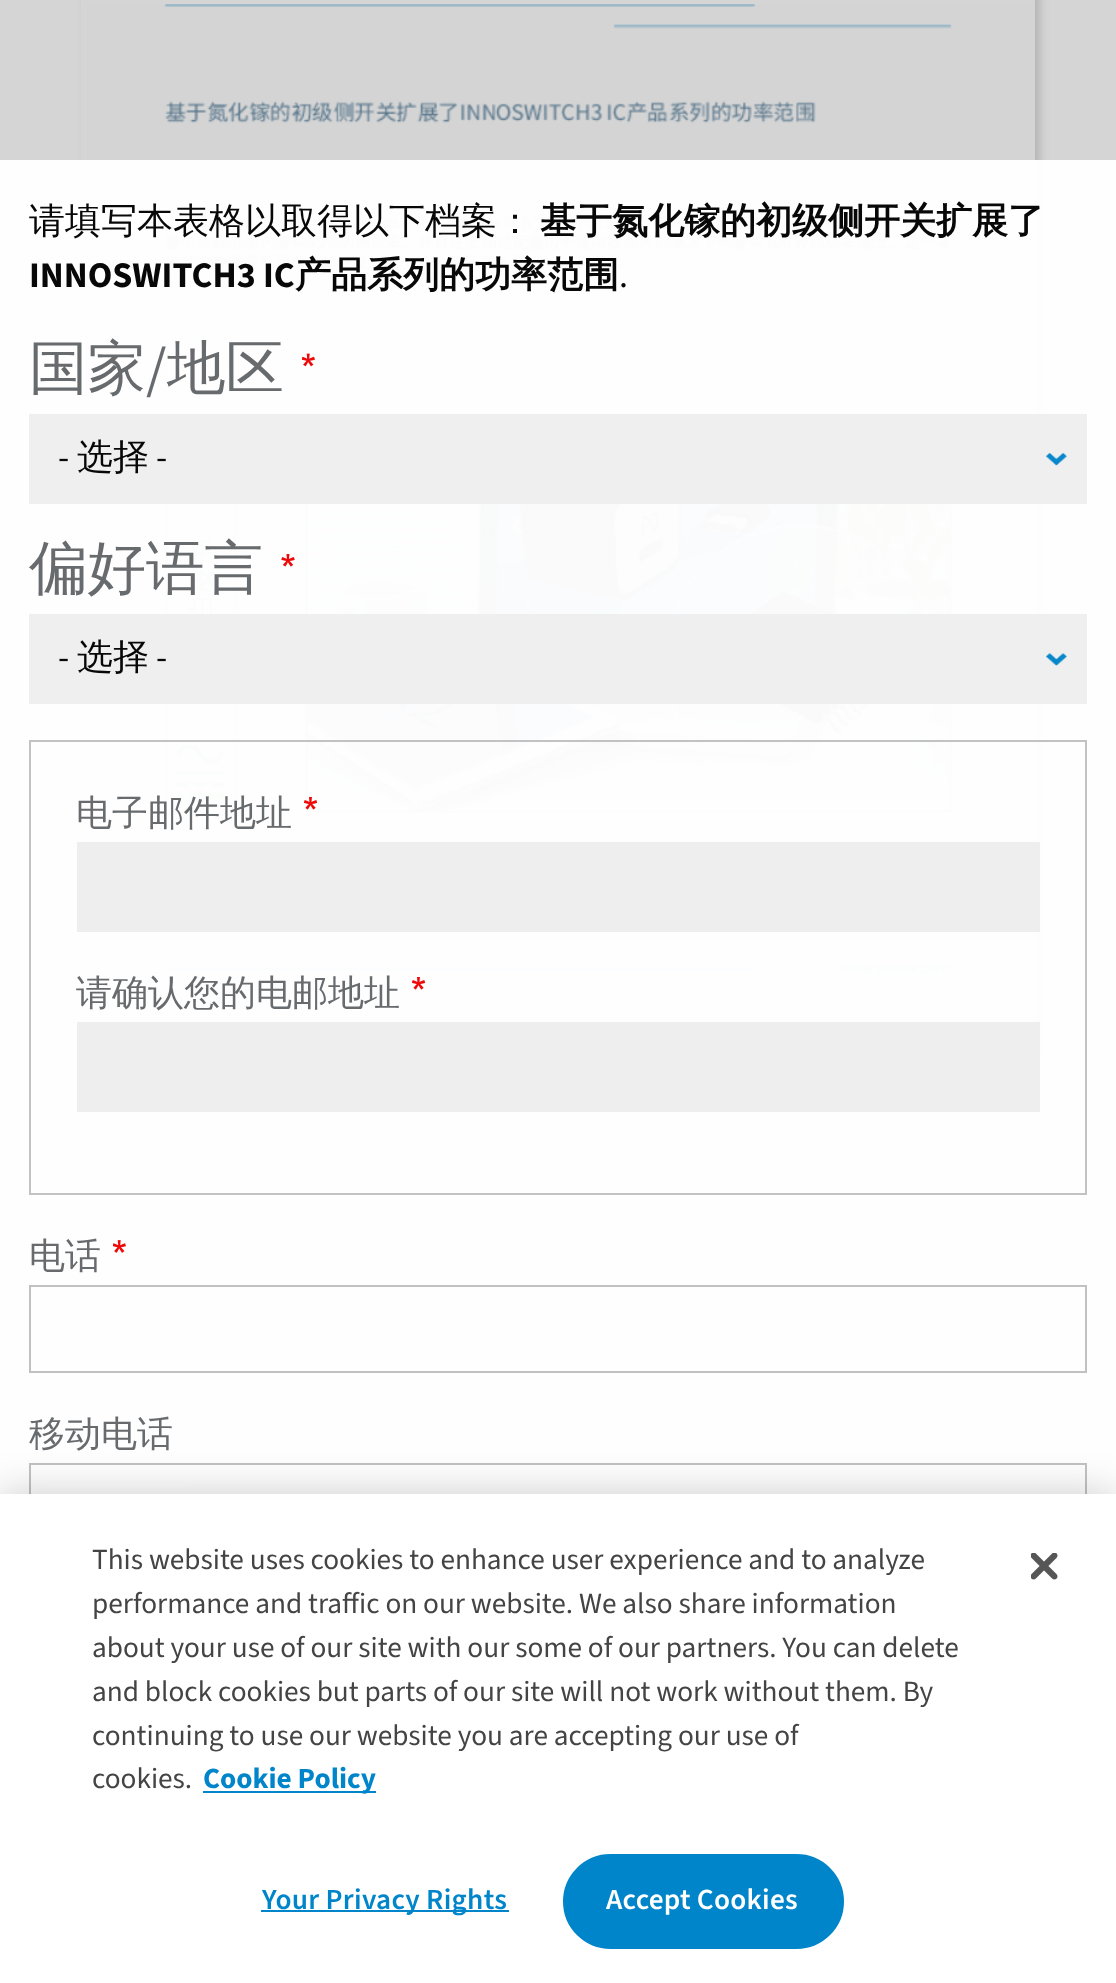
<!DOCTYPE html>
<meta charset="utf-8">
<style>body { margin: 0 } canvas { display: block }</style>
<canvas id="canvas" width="1116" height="1983"></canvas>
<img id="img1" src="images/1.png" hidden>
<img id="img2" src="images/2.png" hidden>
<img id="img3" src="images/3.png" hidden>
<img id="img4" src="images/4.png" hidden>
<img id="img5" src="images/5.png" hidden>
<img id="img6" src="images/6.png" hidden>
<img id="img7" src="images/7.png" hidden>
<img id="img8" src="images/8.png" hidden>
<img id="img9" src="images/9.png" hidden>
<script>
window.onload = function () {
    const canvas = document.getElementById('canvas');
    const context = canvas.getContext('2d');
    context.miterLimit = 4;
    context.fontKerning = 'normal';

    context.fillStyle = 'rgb(213, 213, 213)';
    context.fillRect(0, 0, 1116, 1983);
    context.save();
    context.beginPath();
    context.moveTo(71, 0);
    context.lineTo(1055, 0);
    context.lineTo(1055, 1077);
    context.lineTo(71, 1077);
    context.closePath();
    context.moveTo(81, -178);
    context.lineTo(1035, -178);
    context.lineTo(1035, 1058);
    context.lineTo(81, 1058);
    context.closePath();
    context.clip('evenodd');
    context.fillStyle = 'rgb(181, 181, 181)';
    context.filter = 'blur(4.5px)';
    context.beginPath();
    context.rect(86, -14, 954, 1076);
    context.fill();
    context.filter = 'none';
    context.restore();
    context.drawImage(document.getElementById('img1'), 87, 4, 948, 1018);
    context.fillStyle = 'rgb(85, 152, 186)';
    context.fillRect(45, 1485, 144, 2);
    context.fillStyle = 'rgba(255, 255, 255, 0.97)';
    context.fillRect(0, 160, 1116, 1334);
    context.drawImage(document.getElementById('img2'), 302, 353, 13, 14);
    context.fillStyle = 'rgba(238, 238, 238, 0.97)';
    context.fillRect(29, 414, 1058, 90);
    context.drawImage(document.getElementById('img3'), 1046, 453, 21, 13);
    context.drawImage(document.getElementById('img4'), 281, 554, 14, 13);
    context.fillRect(29, 614, 1058, 90);
    context.drawImage(document.getElementById('img5'), 1046, 653, 21, 13);
    context.strokeStyle = 'rgba(192, 192, 192, 0.97)';
    context.lineWidth = 2;
    context.strokeRect(30, 741, 1056, 453);
    context.drawImage(document.getElementById('img6'), 304, 797, 13, 13);
    context.fillStyle = 'rgb(238, 238, 238)';
    context.fillRect(77, 842, 963, 90);
    context.drawImage(document.getElementById('img7'), 412, 977, 13, 13);
    context.fillRect(77, 1022, 963, 90);
    context.drawImage(document.getElementById('img8'), 113, 1240, 13, 13);
    context.strokeStyle = 'rgb(193, 193, 193)';
    context.strokeRect(30, 1286, 1056, 86);
    context.fillStyle = 'rgba(255, 255, 255, 0.97)';
    context.fillRect(45, 1485, 144, 2);
    context.strokeStyle = 'rgb(194, 194, 194)';
    context.strokeRect(30, 1464, 1056, 85);
    context.fillStyle = 'rgba(0, 0, 0, 0.2)';
    context.filter = 'blur(20px)';
    context.beginPath();
    context.rect(0, 1494, 1116, 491);
    context.fill();
    context.filter = 'none';
    context.fillStyle = 'rgb(255, 255, 255)';
    context.fillRect(0, 1494, 1116, 489);
    context.fillStyle = 'rgb(0, 133, 202)';
    context.fillRect(203, 1791, 173, 2);
    context.fillRect(261, 1910, 248, 2);
    context.beginPath();
    context.roundRect(564, 1855, 279, 93, 46.5);
    context.fill();
    context.strokeStyle = 'rgb(0, 133, 202)';
    context.stroke();
    context.drawImage(document.getElementById('img9'), 1031, 1553, 27, 27);
    context.font = '500 36px WenQuanYi Zen Hei';
    context.fillStyle = 'rgb(8, 8, 8)';
    context.fillText('请填写本表格以取得以下档案：', 29, 233);
    context.font = 'bold 36px WenQuanYi Zen Hei';
    context.fillText('基于氮化镓的初级侧开关扩展了', 540, 233);
    context.font = 'bold 36px "Source Sans 3"';
    context.fillText('INNOSWITCH3 IC', 29, 287);
    context.font = 'bold 36px WenQuanYi Zen Hei';
    context.fillText('产品系列的功率范围', 295, 287);
    context.font = '36px "Source Sans 3"';
    context.fillText('.', 619, 287);
    context.font = '500 58.5px WenQuanYi Zen Hei';
    context.fillStyle = 'rgb(104, 107, 110)';
    context.fillText('国家', 29, 388);
    context.font = '58.5px "Source Sans 3"';
    context.fillText('/', 146, 388);
    context.font = '500 58.5px WenQuanYi Zen Hei';
    context.fillText('地区', 167, 388);
    context.font = '36px "Source Sans 3"';
    context.fillStyle = 'rgb(8, 8, 8)';
    context.fillText('-', 58, 469);
    context.font = '500 36px WenQuanYi Zen Hei';
    context.fillText('选择', 77, 469);
    context.font = '36px "Source Sans 3"';
    context.fillText('-', 156, 469);
    context.font = '500 58.5px WenQuanYi Zen Hei';
    context.fillStyle = 'rgb(104, 107, 110)';
    context.fillText('偏好语言', 29, 588);
    context.font = '36px "Source Sans 3"';
    context.fillStyle = 'rgb(8, 8, 8)';
    context.fillText('-', 58, 669);
    context.font = '500 36px WenQuanYi Zen Hei';
    context.fillText('选择', 77, 669);
    context.font = '36px "Source Sans 3"';
    context.fillText('-', 156, 669);
    context.font = '500 36px WenQuanYi Zen Hei';
    context.fillStyle = 'rgb(104, 107, 110)';
    context.fillText('电子邮件地址', 76, 825);
    context.fillText('请确认您的电邮地址', 76, 1005);
    context.fillText('电话', 29, 1268);
    context.fillText('移动电话', 29, 1446);
    context.font = '29.25px "Source Sans 3"';
    context.fillStyle = 'rgb(68, 68, 68)';
    context.fillText('This website uses cookies to enhance user experience and to analyze', 92, 1569);
    context.fillText('performance and traffic on our website. We also share information', 92, 1613);
    context.fillText('about your use of our site with our some of our partners. You can delete', 92, 1657);
    context.fillText('and block cookies but parts of our site will not work without them. By', 92, 1701);
    context.fillText('continuing to use our website you are accepting our use of', 92, 1745);
    context.fillText('cookies.', 92, 1788);
    context.font = 'bold 29.25px "Source Sans 3"';
    context.fillStyle = 'rgb(0, 133, 202)';
    context.fillText('Cookie Policy', 203, 1788);
    context.letterSpacing = '0.25px';
    context.font = '600 29.25px "Source Sans 3"';
    context.fillText('Your Privacy Rights', 262, 1909);
    context.fillStyle = 'rgb(255, 255, 255)';
    context.fillText('Accept Cookies', 606, 1909);
};
</script>
